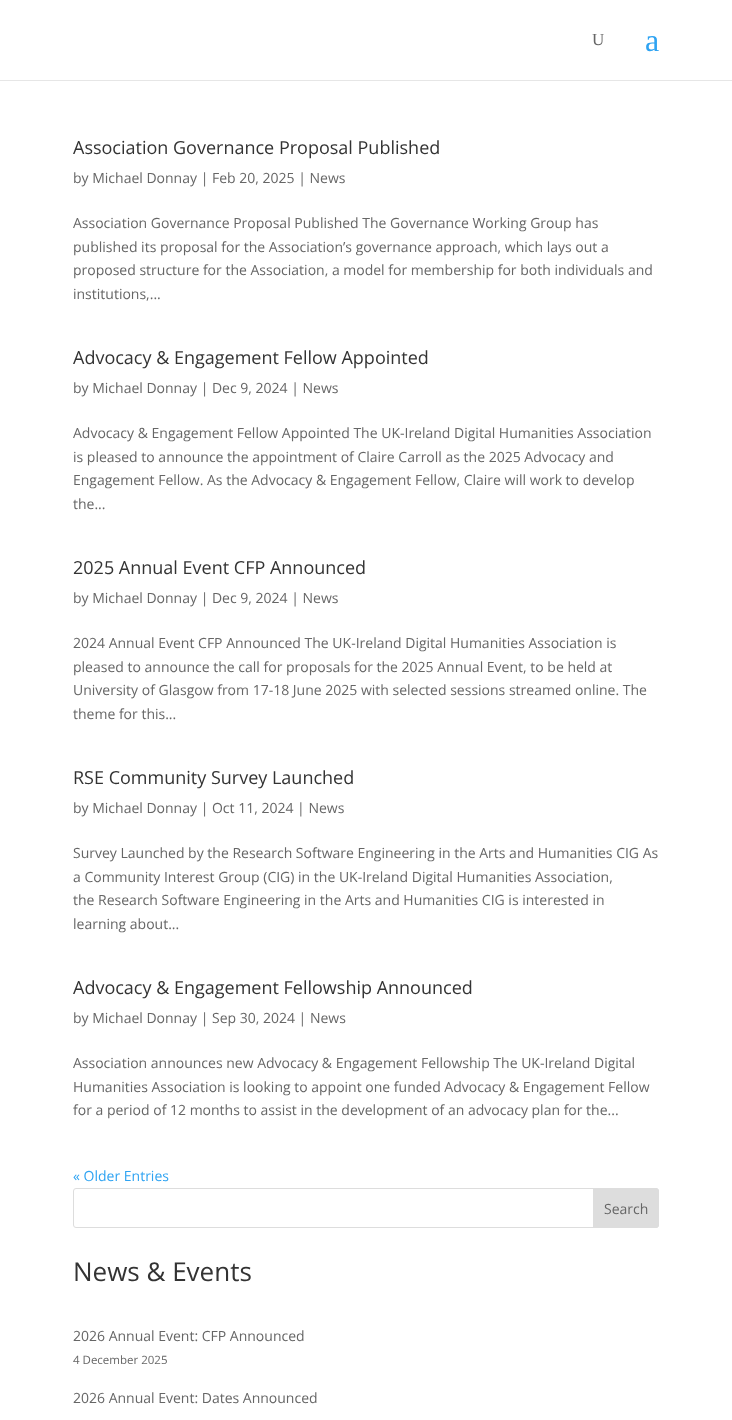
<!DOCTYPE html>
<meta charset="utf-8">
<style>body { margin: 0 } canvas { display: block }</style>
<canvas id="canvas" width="732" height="1420"></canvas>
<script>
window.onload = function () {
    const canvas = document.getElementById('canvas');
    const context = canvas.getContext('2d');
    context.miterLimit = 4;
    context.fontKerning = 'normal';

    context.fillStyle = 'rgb(255, 255, 255)';
    context.fillRect(0, 0, 732, 1420);
    context.fillStyle = 'rgb(230, 230, 230)';
    context.fillRect(0, 80, 732, 1);
    context.beginPath();
    context.roundRect(73.5, 1188.5, 585, 39, 2.5);
    context.strokeStyle = 'rgb(221, 221, 221)';
    context.stroke();
    context.fillStyle = 'rgb(221, 221, 221)';
    context.beginPath();
    context.roundRect(593.5, 1188.5, 65, 39, [0, 2.5, 2.5, 0]);
    context.fill();
    context.stroke();
    context.font = '17px Liberation Serif';
    context.fillStyle = 'rgb(102, 102, 102)';
    context.fillText('U', 592, 45);
    context.font = '32px Liberation Serif';
    context.fillStyle = 'rgb(46, 163, 242)';
    context.fillText('a', 645, 51);
    context.font = '18px Open Sans';
    context.fillStyle = 'rgb(51, 51, 51)';
    context.fillText('Association Governance Proposal Published', 73, 154);
    context.font = '14px Open Sans';
    context.fillStyle = 'rgb(102, 102, 102)';
    context.fillText('by Michael Donnay | Feb 20, 2025 | News', 73, 183);
    context.fillText('Association Governance Proposal Published The Governance Working Group has', 73, 228);
    context.fillText('published its proposal for the Association’s governance approach, which lays out a', 73, 252);
    context.fillText('proposed structure for the Association, a model for membership for both individuals and', 73, 275);
    context.fillText('institutions,...', 73, 299);
    context.font = '18px Open Sans';
    context.fillStyle = 'rgb(51, 51, 51)';
    context.fillText('Advocacy & Engagement Fellow Appointed', 73, 364);
    context.font = '14px Open Sans';
    context.fillStyle = 'rgb(102, 102, 102)';
    context.fillText('by Michael Donnay | Dec 9, 2024 | News', 73, 393);
    context.fillText('Advocacy & Engagement Fellow Appointed The UK-Ireland Digital Humanities Association', 73, 438);
    context.fillText('is pleased to announce the appointment of Claire Carroll as the 2025 Advocacy and', 73, 462);
    context.fillText('Engagement Fellow. As the Advocacy & Engagement Fellow, Claire will work to develop', 73, 485);
    context.fillText('the...', 73, 509);
    context.font = '18px Open Sans';
    context.fillStyle = 'rgb(51, 51, 51)';
    context.fillText('2025 Annual Event CFP Announced', 73, 574);
    context.font = '14px Open Sans';
    context.fillStyle = 'rgb(102, 102, 102)';
    context.fillText('by Michael Donnay | Dec 9, 2024 | News', 73, 603);
    context.fillText('2024 Annual Event CFP Announced The UK-Ireland Digital Humanities Association is', 73, 648);
    context.fillText('pleased to announce the call for proposals for the 2025 Annual Event, to be held at', 73, 672);
    context.fillText('University of Glasgow from 17-18 June 2025 with selected sessions streamed online. The', 73, 695);
    context.fillText('theme for this...', 73, 719);
    context.font = '18px Open Sans';
    context.fillStyle = 'rgb(51, 51, 51)';
    context.fillText('RSE Community Survey Launched', 73, 784);
    context.font = '14px Open Sans';
    context.fillStyle = 'rgb(102, 102, 102)';
    context.fillText('by Michael Donnay | Oct 11, 2024 | News', 73, 813);
    context.fillText('Survey Launched by the Research Software Engineering in the Arts and Humanities CIG As', 73, 858);
    context.fillText('a Community Interest Group (CIG) in the UK-Ireland Digital Humanities Association,', 73, 882);
    context.fillText('the Research Software Engineering in the Arts and Humanities CIG is interested in', 73, 905);
    context.fillText('learning about...', 73, 929);
    context.font = '18px Open Sans';
    context.fillStyle = 'rgb(51, 51, 51)';
    context.fillText('Advocacy & Engagement Fellowship Announced', 73, 994);
    context.font = '14px Open Sans';
    context.fillStyle = 'rgb(102, 102, 102)';
    context.fillText('by Michael Donnay | Sep 30, 2024 | News', 73, 1023);
    context.fillText('Association announces new Advocacy & Engagement Fellowship The UK-Ireland Digital', 73, 1068);
    context.fillText('Humanities Association is looking to appoint one funded Advocacy & Engagement Fellow', 73, 1092);
    context.fillText('for a period of 12 months to assist in the development of an advocacy plan for the...', 73, 1115);
    context.fillStyle = 'rgb(46, 163, 242)';
    context.fillText('« Older Entries', 73, 1181);
    context.fillStyle = 'rgb(102, 102, 102)';
    context.fillText('Search', 604, 1214);
    context.font = '26px Open Sans';
    context.fillStyle = 'rgb(51, 51, 51)';
    context.fillText('News & Events', 73, 1281);
    context.font = '14px Open Sans';
    context.fillStyle = 'rgb(102, 102, 102)';
    context.fillText('2026 Annual Event: CFP Announced', 73, 1341);
    context.font = '11.5px Open Sans';
    context.fillText('4 December 2025', 73, 1364);
    context.font = '14px Open Sans';
    context.fillText('2026 Annual Event: Dates Announced', 73, 1403);
};
</script>
